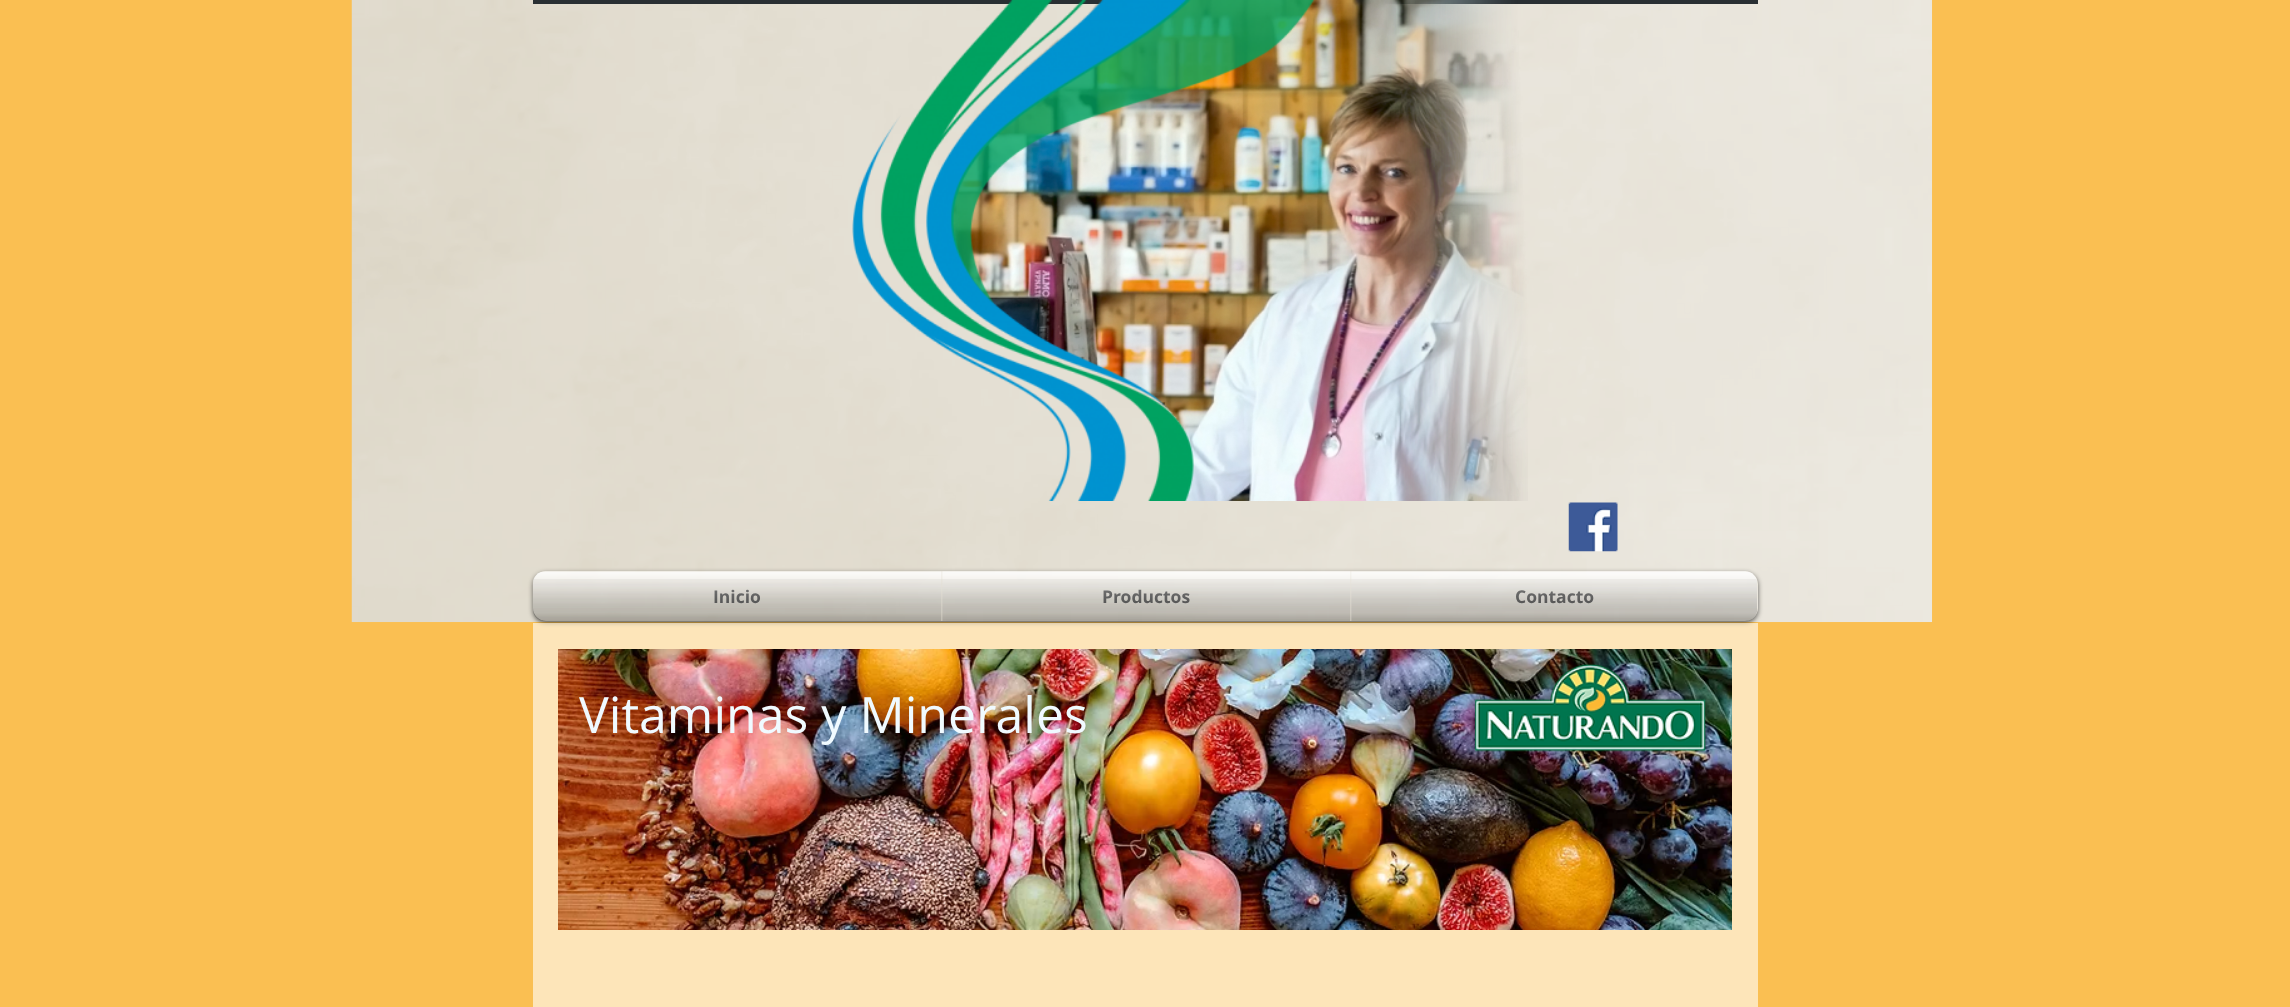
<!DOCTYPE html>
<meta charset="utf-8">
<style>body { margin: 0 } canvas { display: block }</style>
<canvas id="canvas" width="2290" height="1007"></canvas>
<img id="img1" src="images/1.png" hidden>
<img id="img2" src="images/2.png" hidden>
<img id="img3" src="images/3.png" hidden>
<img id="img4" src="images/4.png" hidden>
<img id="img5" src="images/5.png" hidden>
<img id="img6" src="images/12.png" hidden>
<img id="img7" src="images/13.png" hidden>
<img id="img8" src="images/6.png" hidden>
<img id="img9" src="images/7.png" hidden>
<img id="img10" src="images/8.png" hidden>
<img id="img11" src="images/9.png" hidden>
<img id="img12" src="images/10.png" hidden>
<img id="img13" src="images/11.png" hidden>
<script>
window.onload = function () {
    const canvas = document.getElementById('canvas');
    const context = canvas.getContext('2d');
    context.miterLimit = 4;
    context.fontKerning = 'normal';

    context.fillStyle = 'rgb(250, 191, 82)';
    context.fillRect(0, 0, 2290, 1007);
    context.drawImage(document.getElementById('img1'), 351, 0, 1582, 623);
    context.fillStyle = 'rgb(41, 47, 51)';
    context.fillRect(533, 0, 1225, 4);
    context.drawImage(document.getElementById('img2'), 852, 0, 676, 501);
    context.drawImage(document.getElementById('img3'), 1568, 502, 50, 50);
    context.save();
    context.beginPath();
    context.moveTo(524, 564);
    context.lineTo(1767, 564);
    context.lineTo(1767, 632);
    context.lineTo(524, 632);
    context.closePath();
    context.moveTo(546, 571);
    context.lineTo(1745, 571);
    context.bezierCurveTo(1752, 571, 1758, 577, 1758, 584);
    context.lineTo(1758, 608);
    context.bezierCurveTo(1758, 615, 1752, 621, 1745, 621);
    context.lineTo(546, 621);
    context.bezierCurveTo(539, 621, 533, 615, 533, 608);
    context.lineTo(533, 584);
    context.bezierCurveTo(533, 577, 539, 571, 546, 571);
    context.closePath();
    context.clip('evenodd');
    context.fillStyle = 'rgba(0, 0, 0, 0.6)';
    context.filter = 'blur(2.5px)';
    context.beginPath();
    context.roundRect(533, 573, 1225, 50, 13);
    context.fill();
    context.filter = 'none';
    context.restore();
    context.drawImage(document.getElementById('img4'), 532, 571, 1226, 42);
    context.drawImage(document.getElementById('img5'), 533, 579, 1224, 42);
    context.fillStyle = 'rgba(255, 255, 255, 0.6)';
    context.fillRect(533, 623, 1225, 384);
    context.drawImage(document.getElementById('img6'), 558, 649, 1174, 281);
    context.drawImage(document.getElementById('img7'), 1466, 655, 248, 101);
    context.font = 'bold 17.5px Open Sans';
    context.fillStyle = 'rgb(68, 68, 68)';
    context.fillText('Inicio', 713, 603);
    context.drawImage(document.getElementById('img8'), 533, 571, 408, 49);
    context.drawImage(document.getElementById('img9'), 533, 579, 408, 42);
    context.fillText('Productos', 1102, 603);
    context.drawImage(document.getElementById('img10'), 942, 571, 408, 48);
    context.drawImage(document.getElementById('img11'), 942, 579, 408, 42);
    context.fillText('Contacto', 1515, 603);
    context.drawImage(document.getElementById('img12'), 1351, 571, 406, 47);
    context.drawImage(document.getElementById('img13'), 1351, 579, 406, 42);
    context.font = '50px Open Sans';
    context.fillStyle = 'rgb(240, 250, 255)';
    context.fillText('Vitaminas y Minerales', 579, 733);
};
</script>
